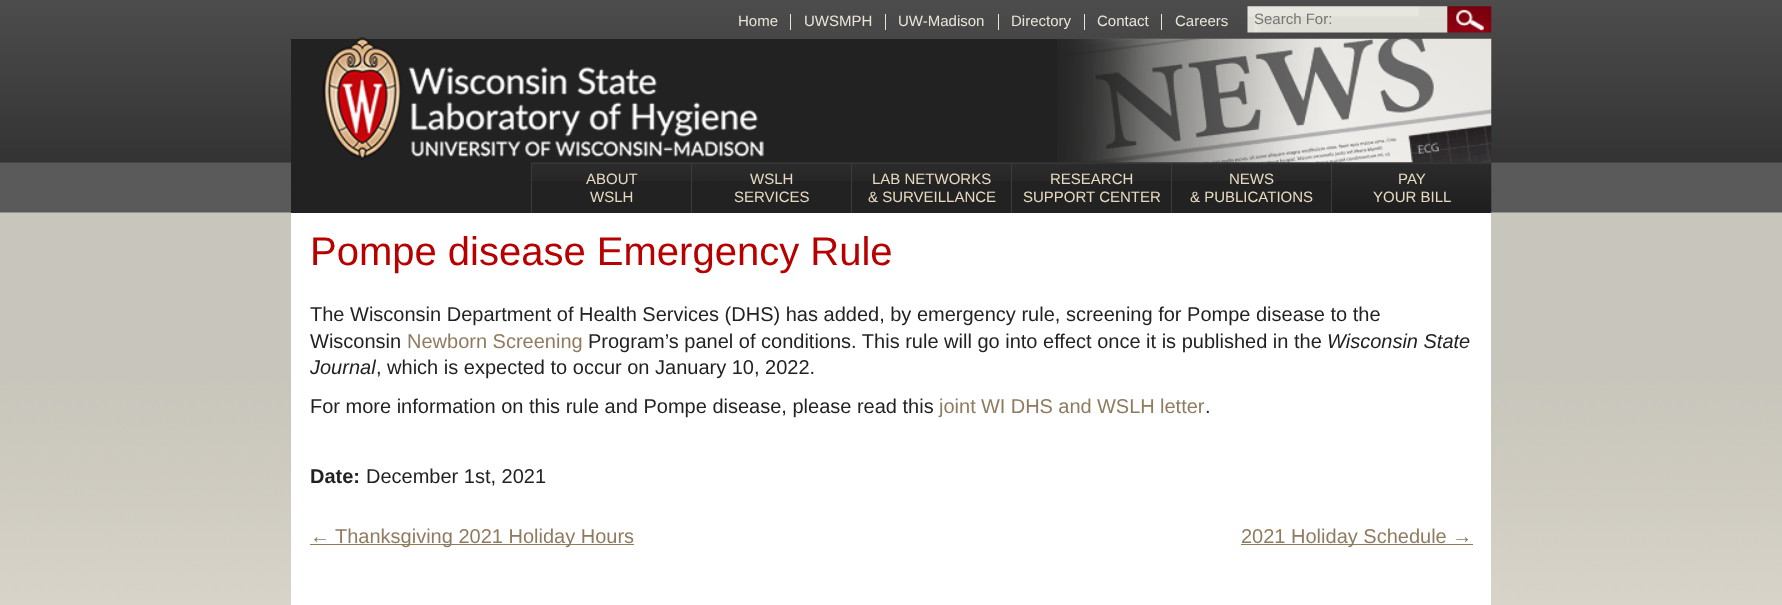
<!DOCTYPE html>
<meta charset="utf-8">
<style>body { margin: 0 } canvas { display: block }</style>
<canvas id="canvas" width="1782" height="605"></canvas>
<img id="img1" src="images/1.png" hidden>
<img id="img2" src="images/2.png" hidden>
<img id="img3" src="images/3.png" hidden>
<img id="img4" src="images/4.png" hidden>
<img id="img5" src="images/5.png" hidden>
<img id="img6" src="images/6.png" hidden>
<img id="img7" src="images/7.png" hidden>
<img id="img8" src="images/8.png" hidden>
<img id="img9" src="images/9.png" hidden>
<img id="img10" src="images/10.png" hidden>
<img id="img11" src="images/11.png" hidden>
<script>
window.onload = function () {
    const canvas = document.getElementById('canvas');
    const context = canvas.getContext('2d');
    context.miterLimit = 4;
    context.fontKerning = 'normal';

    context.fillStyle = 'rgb(255, 255, 255)';
    context.fillRect(0, 0, 1782, 605);
    context.drawImage(document.getElementById('img1'), 0, 0, 1782, 605);
    context.fillStyle = 'rgb(34, 34, 34)';
    context.fillRect(291, 39, 1200, 174);
    context.fillStyle = 'rgb(232, 228, 216)';
    context.fillRect(790, 14, 1, 16);
    context.fillRect(885, 14, 1, 16);
    context.fillRect(998, 14, 1, 16);
    context.fillRect(1084, 14, 1, 16);
    context.fillRect(1161, 14, 1, 16);
    context.drawImage(document.getElementById('img2'), 1247, 6, 201, 27);
    context.drawImage(document.getElementById('img3'), 1447, 6, 45, 27);
    context.drawImage(document.getElementById('img4'), 322, 37, 442, 123);
    context.drawImage(document.getElementById('img5'), 1057, 38, 435, 125);
    context.drawImage(document.getElementById('img6'), 531, 162, 161, 19);
    context.fillStyle = 'rgb(59, 59, 59)';
    context.fillRect(531, 163, 1, 50);
    context.drawImage(document.getElementById('img7'), 691, 162, 161, 19);
    context.fillRect(691, 163, 1, 50);
    context.drawImage(document.getElementById('img8'), 851, 162, 161, 19);
    context.fillRect(851, 163, 1, 50);
    context.drawImage(document.getElementById('img9'), 1011, 162, 161, 19);
    context.fillRect(1011, 163, 1, 50);
    context.drawImage(document.getElementById('img10'), 1171, 162, 161, 19);
    context.fillRect(1171, 163, 1, 50);
    context.drawImage(document.getElementById('img11'), 1331, 162, 161, 51);
    context.fillRect(1331, 163, 1, 50);
    context.fillStyle = 'rgb(255, 255, 255)';
    context.fillRect(291, 213, 1200, 392);
    context.fillStyle = 'rgb(143, 123, 95)';
    context.fillRect(310, 544, 324, 1);
    context.fillRect(1241, 544, 232, 1);
    context.font = '15px Liberation Sans';
    context.fillStyle = 'rgb(232, 228, 216)';
    context.fillText('Home', 738, 26);
    context.fillText('UWSMPH', 804, 26);
    context.fillText('UW-Madison', 898, 26);
    context.fillText('Directory', 1011, 26);
    context.fillText('Contact', 1097, 26);
    context.fillText('Careers', 1175, 26);
    context.fillStyle = 'rgb(117, 117, 117)';
    context.fillText('Search For:', 1254, 24);
    context.fillStyle = 'rgb(231, 217, 193)';
    context.fillText('ABOUT', 586, 184);
    context.fillText('WSLH', 590, 202);
    context.fillText('WSLH', 750, 184);
    context.fillText('SERVICES', 734, 202);
    context.fillText('LAB NETWORKS', 872, 184);
    context.fillText('& SURVEILLANCE', 868, 202);
    context.fillText('RESEARCH', 1050, 184);
    context.fillText('SUPPORT CENTER', 1023, 202);
    context.fillText('NEWS', 1229, 184);
    context.fillText('& PUBLICATIONS', 1190, 202);
    context.fillText('PAY', 1398, 184);
    context.fillText('YOUR BILL', 1373, 202);
    context.font = '40px Liberation Sans';
    context.fillStyle = 'rgb(183, 1, 1)';
    context.fillText('Pompe disease Emergency Rule', 310, 265);
    context.font = '20px Liberation Sans';
    context.fillStyle = 'rgb(34, 34, 34)';
    context.fillText('The Wisconsin Department of Health Services (DHS) has added, by emergency rule, screening for Pompe disease to the', 310, 321);
    context.fillText('Wisconsin', 310, 348);
    context.fillStyle = 'rgb(143, 123, 95)';
    context.fillText('Newborn Screening', 407, 348);
    context.fillStyle = 'rgb(34, 34, 34)';
    context.fillText('Program’s panel of conditions. This rule will go into effect once it is published in the', 588, 348);
    context.font = 'italic 20px Liberation Sans';
    context.fillText('Wisconsin State', 1327, 348);
    context.fillText('Journal', 310, 374);
    context.font = '20px Liberation Sans';
    context.fillText(', which is expected to occur on January 10, 2022.', 376, 374);
    context.fillText('For more information on this rule and Pompe disease, please read this', 310, 413);
    context.wordSpacing = '-0.25px';
    context.fillStyle = 'rgb(143, 123, 95)';
    context.fillText('joint WI DHS and WSLH letter', 939, 413);
    context.wordSpacing = '0px';
    context.fillStyle = 'rgb(34, 34, 34)';
    context.fillText('.', 1205, 413);
    context.font = 'bold 20px Liberation Sans';
    context.fillText('Date:', 310, 483);
    context.font = '20px Liberation Sans';
    context.fillText('December 1st, 2021', 366, 483);
    context.fillStyle = 'rgb(143, 123, 95)';
    context.fillText('←', 310, 543);
    context.fillText('Thanksgiving 2021 Holiday Hours', 335, 543);
    context.fillText('2021 Holiday Schedule →', 1241, 543);
};
</script>
